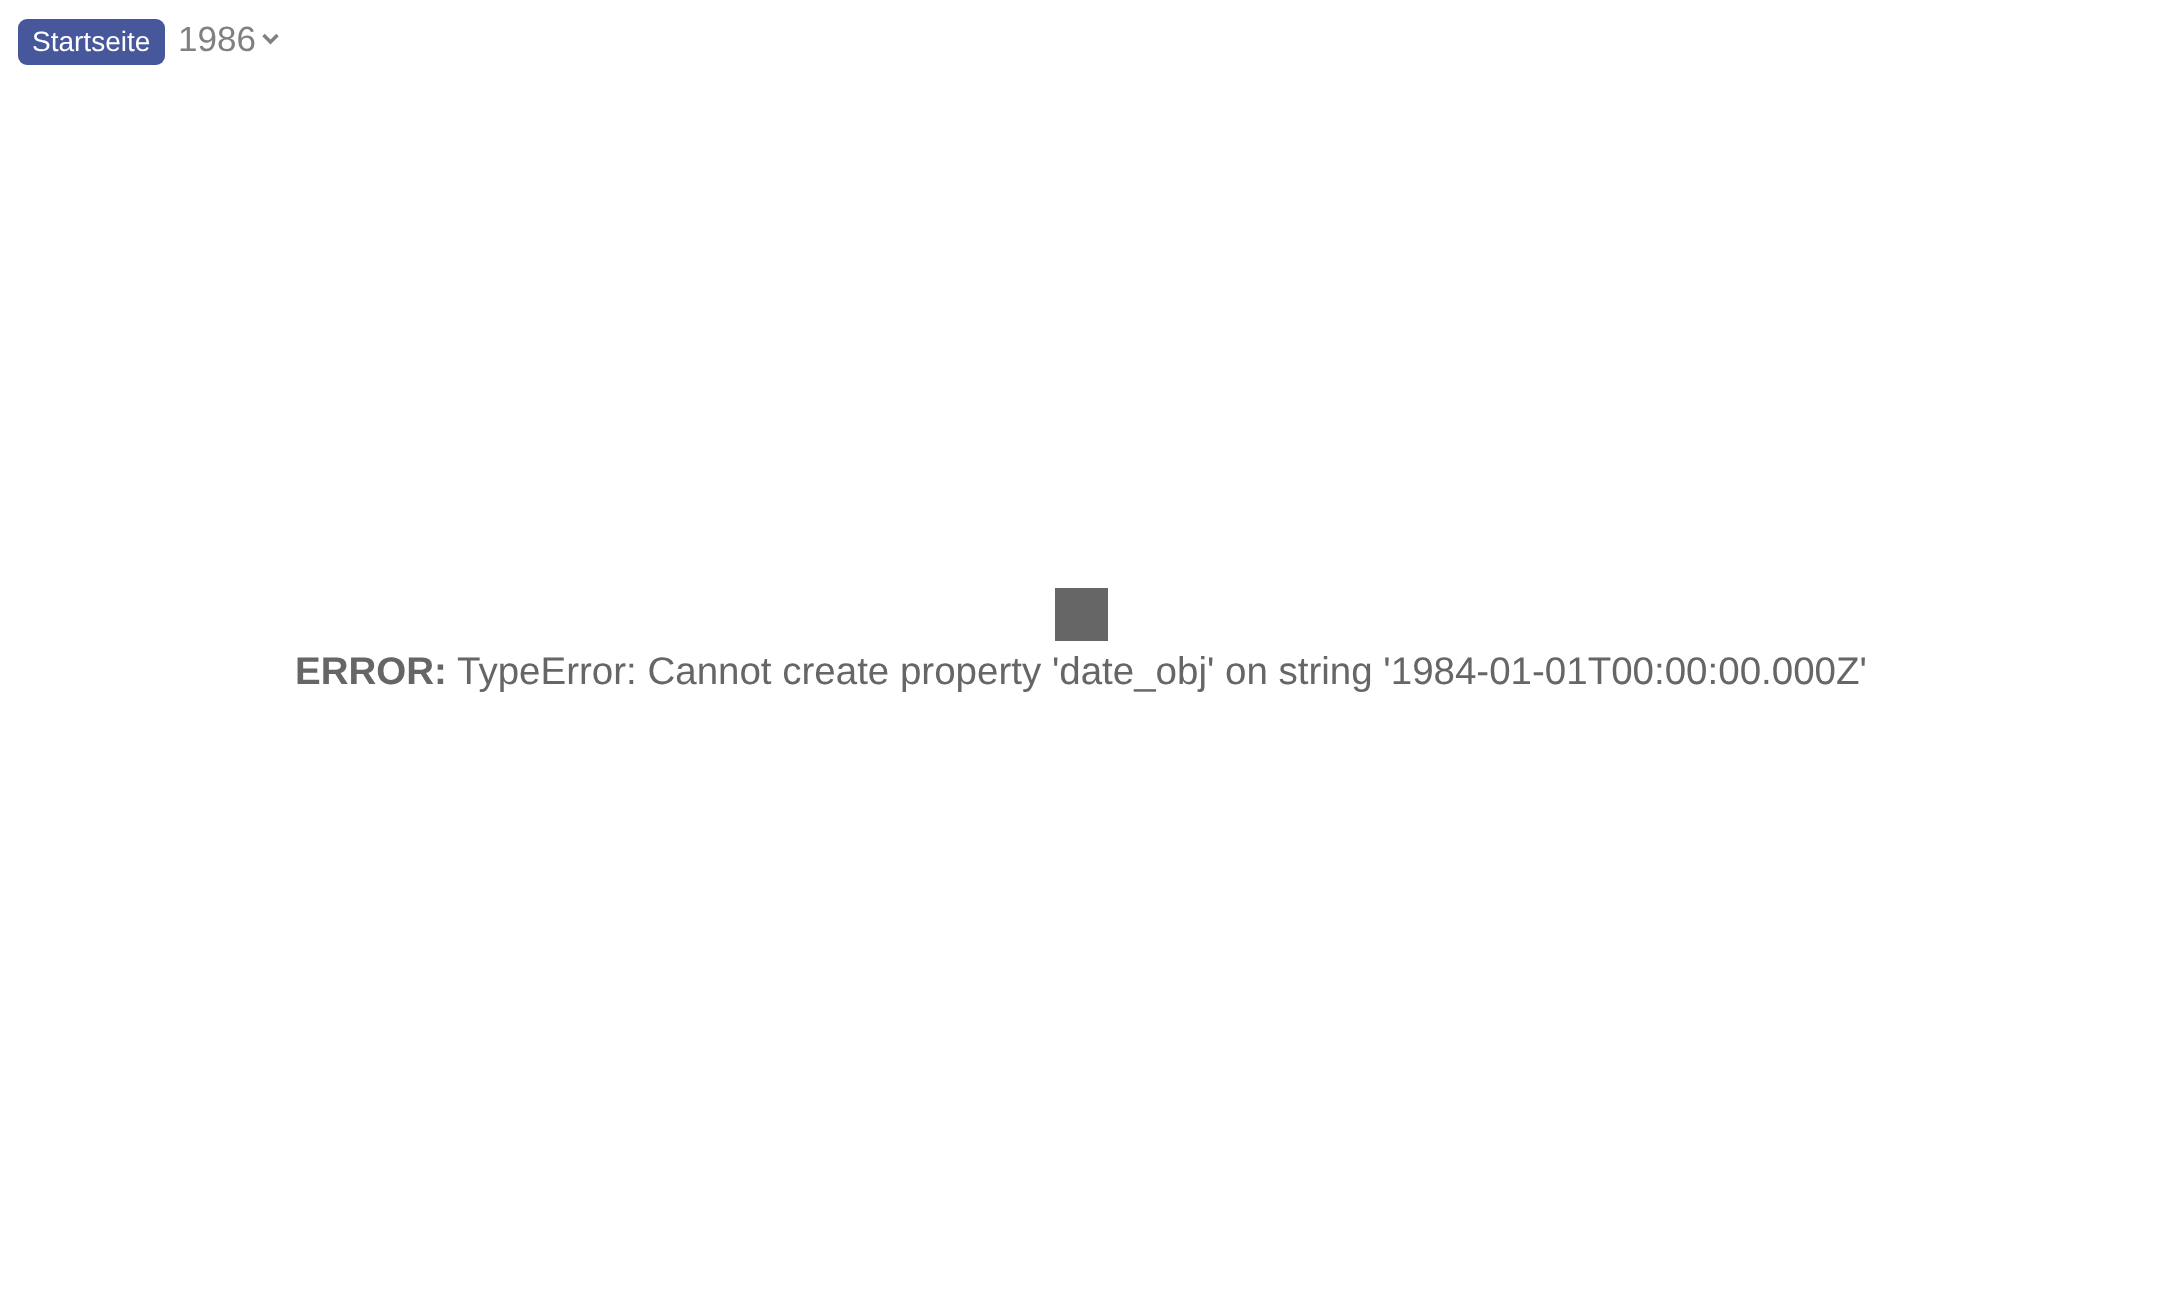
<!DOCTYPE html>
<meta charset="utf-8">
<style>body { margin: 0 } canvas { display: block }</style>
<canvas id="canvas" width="2161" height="1290"></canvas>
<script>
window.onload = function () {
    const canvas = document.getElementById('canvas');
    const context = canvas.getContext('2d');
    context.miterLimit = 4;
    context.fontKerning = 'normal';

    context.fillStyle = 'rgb(255, 255, 255)';
    context.fillRect(0, 0, 2161, 1290);
    context.fillStyle = 'rgb(71, 87, 156)';
    context.beginPath();
    context.roundRect(18, 19, 147, 46, 9);
    context.fill();
    context.beginPath();
    context.moveTo(263.5, 35);
    context.lineTo(270.5, 42);
    context.lineTo(277.5, 35);
    context.strokeStyle = 'rgb(128, 128, 128)';
    context.lineWidth = 3.5;
    context.stroke();
    context.fillStyle = 'rgb(102, 102, 102)';
    context.fillRect(1055, 588, 53, 53);
    context.font = '28px Liberation Sans';
    context.fillStyle = 'rgb(255, 255, 255)';
    context.fillText('Startseite', 32, 51);
    context.font = '35px Liberation Sans';
    context.fillStyle = 'rgb(128, 128, 128)';
    context.fillText('1986', 178, 51);
    context.font = 'bold 38.5px Liberation Sans';
    context.fillStyle = 'rgb(102, 102, 102)';
    context.fillText('ERROR:', 295, 684);
    context.font = '38.5px Liberation Sans';
    context.fillText('TypeError: Cannot create property \'date_obj\' on string \'1984-01-01T00:00:00.000Z\'', 457, 684);
};
</script>
